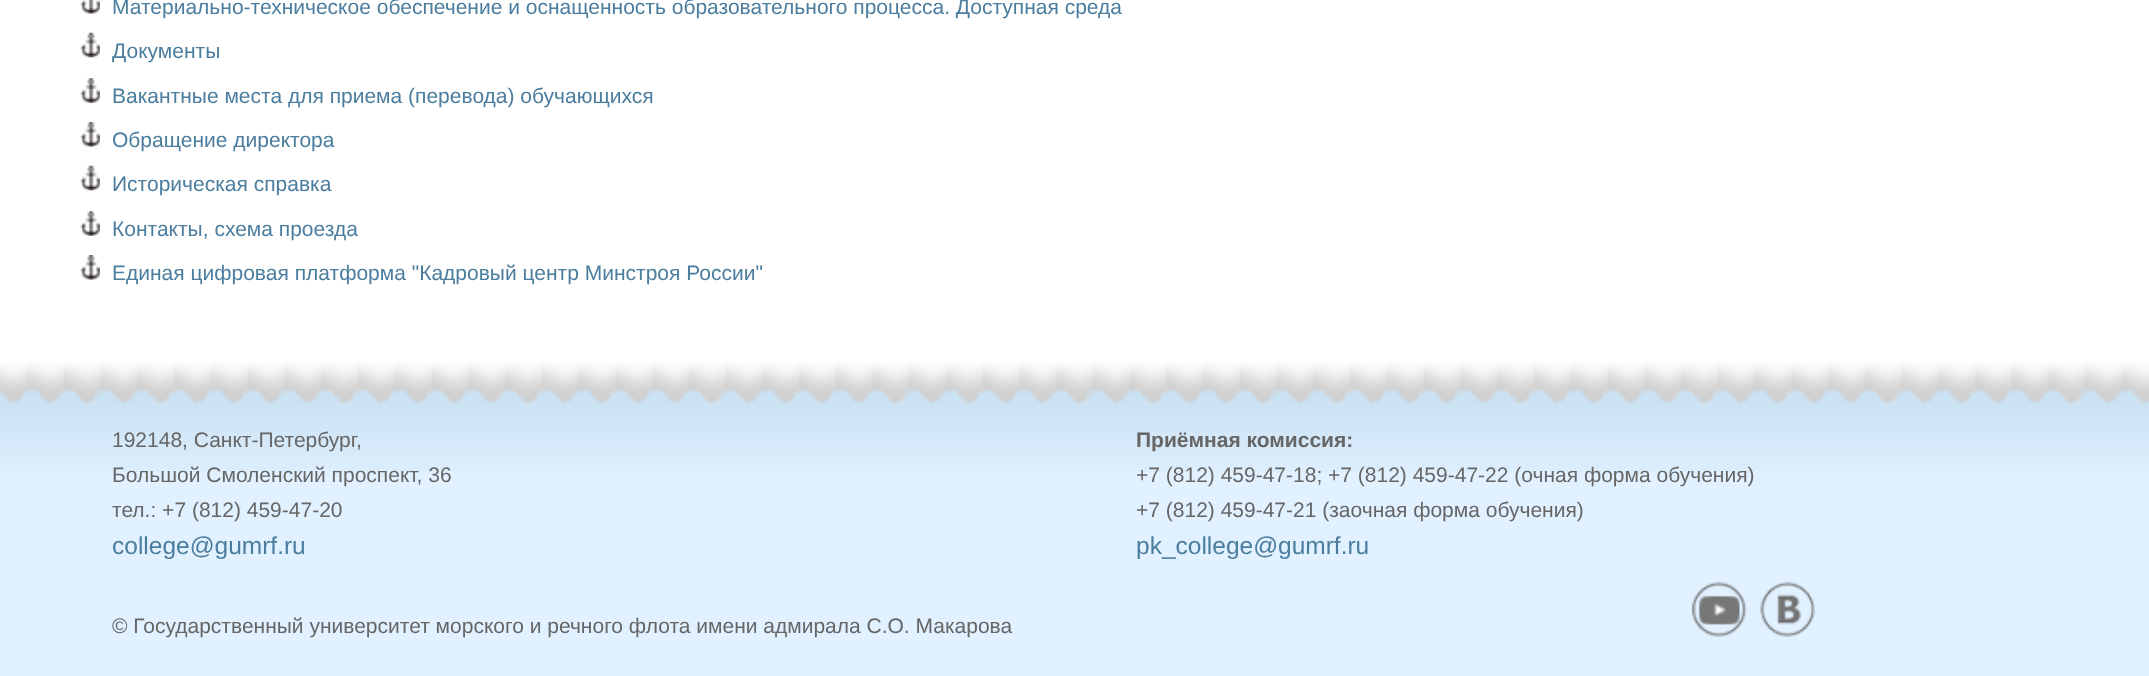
<!DOCTYPE html>
<meta charset="utf-8">
<style>body { margin: 0 } canvas { display: block }</style>
<canvas id="canvas" width="2149" height="676"></canvas>
<img id="img1" src="images/1.png" hidden>
<img id="img2" src="images/2.png" hidden>
<img id="img3" src="images/3.png" hidden>
<img id="img4" src="images/4.png" hidden>
<img id="img5" src="images/5.png" hidden>
<img id="img6" src="images/6.png" hidden>
<img id="img7" src="images/7.png" hidden>
<script>
window.onload = function () {
    const canvas = document.getElementById('canvas');
    const context = canvas.getContext('2d');
    context.miterLimit = 4;
    context.fontKerning = 'normal';

    context.fillStyle = 'rgb(255, 255, 255)';
    context.fillRect(0, 0, 2149, 676);
    context.drawImage(document.getElementById('img1'), 80, 0, 20, 14);
    context.drawImage(document.getElementById('img2'), 80, 32, 20, 26);
    context.drawImage(document.getElementById('img3'), 80, 78, 20, 25);
    context.drawImage(document.getElementById('img4'), 80, 122, 20, 25);
    context.drawImage(document.getElementById('img2'), 80, 165, 20, 26);
    context.drawImage(document.getElementById('img3'), 80, 211, 20, 25);
    context.drawImage(document.getElementById('img4'), 80, 255, 20, 25);
    context.fillStyle = 'rgb(225, 241, 255)';
    context.fillRect(0, 472, 2149, 204);
    context.drawImage(document.getElementById('img5'), 0, 362, 2149, 110);
    context.drawImage(document.getElementById('img6'), 1692, 582, 55, 55);
    context.drawImage(document.getElementById('img7'), 1760, 582, 55, 55);
    context.font = '21px Liberation Sans';
    context.fillStyle = 'rgb(75, 125, 158)';
    context.fillText('Материально-техническое обеспечение и оснащенность образовательного процесса. Доступная среда', 112, 14);
    context.fillText('Документы', 112, 58);
    context.fillText('Вакантные места для приема (перевода) обучающихся', 112, 103);
    context.fillText('Обращение директора', 112, 147);
    context.fillText('Историческая справка', 112, 191);
    context.fillText('Контакты, схема проезда', 112, 236);
    context.fillText('Единая цифровая платформа "Кадровый центр Минстроя России"', 112, 280);
    context.fillStyle = 'rgb(102, 102, 102)';
    context.fillText('192148, Санкт-Петербург,', 112, 447);
    context.fillText('Большой Смоленский проспект, 36', 112, 482);
    context.fillText('тел.: +7 (812) 459-47-20', 112, 517);
    context.font = '24.5px Liberation Sans';
    context.fillStyle = 'rgb(75, 125, 158)';
    context.fillText('college@gumrf.ru', 112, 554);
    context.font = 'bold 21px Liberation Sans';
    context.fillStyle = 'rgb(102, 102, 102)';
    context.fillText('Приёмная комиссия:', 1136, 447);
    context.font = '21px Liberation Sans';
    context.fillText('+7 (812) 459-47-18; +7 (812) 459-47-22 (очная форма обучения)', 1136, 482);
    context.fillText('+7 (812) 459-47-21 (заочная форма обучения)', 1136, 517);
    context.font = '24.5px Liberation Sans';
    context.fillStyle = 'rgb(75, 125, 158)';
    context.fillText('pk_college@gumrf.ru', 1136, 554);
    context.font = '21px Liberation Sans';
    context.fillStyle = 'rgb(102, 102, 102)';
    context.fillText('© Государственный университет морского и речного флота имени адмирала С.О. Макарова', 112, 633);
};
</script>
